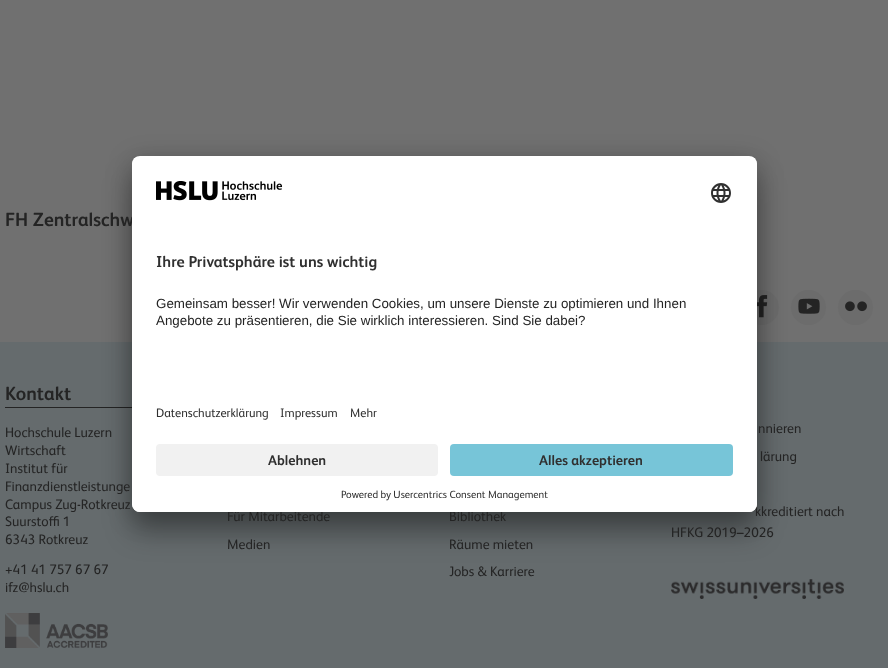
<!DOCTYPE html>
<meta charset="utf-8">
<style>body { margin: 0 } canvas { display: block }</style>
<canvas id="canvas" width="888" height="668"></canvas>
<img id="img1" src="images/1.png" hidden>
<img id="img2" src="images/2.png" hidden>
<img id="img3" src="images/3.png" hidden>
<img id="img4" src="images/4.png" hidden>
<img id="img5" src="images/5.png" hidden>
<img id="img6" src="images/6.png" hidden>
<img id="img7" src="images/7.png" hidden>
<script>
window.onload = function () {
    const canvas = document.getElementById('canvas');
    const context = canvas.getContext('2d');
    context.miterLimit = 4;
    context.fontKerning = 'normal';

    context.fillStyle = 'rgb(112, 112, 112)';
    context.fillRect(0, 0, 888, 668);
    context.fillStyle = 'rgb(108, 108, 108)';
    context.beginPath();
    context.arc(761.5, 307.5, 17.5, 0, 2 * Math.PI);
    context.fill();
    context.drawImage(document.getElementById('img1'), 757, 295, 11, 23);
    context.beginPath();
    context.arc(808.5, 307.5, 17.5, 0, 2 * Math.PI);
    context.fill();
    context.drawImage(document.getElementById('img2'), 798, 298, 22, 16);
    context.beginPath();
    context.arc(855.5, 307.5, 17.5, 0, 2 * Math.PI);
    context.fill();
    context.drawImage(document.getElementById('img3'), 845, 301, 22, 11);
    context.fillStyle = 'rgb(101, 107, 109)';
    context.fillRect(0, 342, 888, 326);
    context.fillStyle = 'rgb(36, 36, 36)';
    context.fillRect(5, 407, 127, 1);
    context.drawImage(document.getElementById('img4'), 5, 613, 103, 35);
    context.drawImage(document.getElementById('img5'), 671, 579, 173, 20);
    context.fillStyle = 'rgba(0, 0, 0, 0.3)';
    context.filter = 'blur(14px)';
    context.beginPath();
    context.roundRect(132, 176, 625, 356, 8);
    context.fill();
    context.filter = 'none';
    context.fillStyle = 'rgba(0, 0, 0, 0.22)';
    context.filter = 'blur(13px)';
    context.beginPath();
    context.roundRect(132, 161, 625, 356, 8);
    context.fill();
    context.filter = 'none';
    context.font = 'bold 19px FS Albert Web';
    context.fillStyle = 'rgb(36, 36, 36)';
    context.fillText('FH Zentralschw', 5, 226);
    context.fillText('Kontakt', 5, 400);
    context.font = '13.75px FS Albert Web';
    context.fillText('Hochschule Luzern', 5, 437);
    context.fillText('Wirtschaft', 5, 455);
    context.fillText('Institut für', 5, 473);
    context.fillText('Finanzdienstleistunge', 5, 491);
    context.fillText('Campus Zug-Rotkreuz', 5, 509);
    context.fillText('Suurstoffi 1', 5, 526);
    context.fillText('6343 Rotkreuz', 5, 544);
    context.fillText('+41 41 757 67 67', 5, 574);
    context.fillText('ifz@hslu.ch', 5, 592);
    context.fillText('Für Mitarbeitende', 227, 521);
    context.fillText('Medien', 227, 549);
    context.fillText('Bibliothek', 449, 521);
    context.fillText('Räume mieten', 449, 549);
    context.fillText('Jobs & Karriere', 449, 576);
    context.fillText('nnieren', 758, 433);
    context.fillText('lärung', 760, 461);
    context.fillText('kkreditiert nach', 755, 516);
    context.fillText('HFKG 2019–2026', 671, 537);
    context.fillStyle = 'rgb(255, 255, 255)';
    context.beginPath();
    context.roundRect(132, 156, 625, 356, 8);
    context.fill();
    context.save();
    context.beginPath();
    context.roundRect(132, 156, 625, 356, 8);
    context.clip();
    context.beginPath();
    context.roundRect(132, 156, 625, 280, [8, 8, 0, 0]);
    context.clip();
    context.fillRect(132, 157, 625, 279);
    context.restore();
    context.drawImage(document.getElementById('img6'), 156, 181, 127, 20);
    context.drawImage(document.getElementById('img7'), 711, 183, 20, 20);
    context.font = 'bold 15.75px FS Albert Web';
    context.fillStyle = 'rgb(48, 48, 48)';
    context.fillText('Ihre Privatsphäre ist uns wichtig', 156, 267);
    context.font = '13.35px Liberation Sans';
    context.fillStyle = 'rgb(36, 36, 36)';
    context.fillText('Gemeinsam besser! Wir verwenden Cookies, um unsere Dienste zu optimieren und Ihnen', 156, 308);
    context.fillText('Angebote zu präsentieren, die Sie wirklich interessieren. Sind Sie dabei?', 156, 325);
    context.font = '12.25px FS Albert Web';
    context.fillStyle = 'rgb(48, 48, 48)';
    context.fillText('Datenschutzerklärung', 156, 417);
    context.fillText('Impressum', 280, 417);
    context.fillText('Mehr', 350, 417);
    context.fillStyle = 'rgb(255, 255, 255)';
    context.beginPath();
    context.roundRect(132, 436, 625, 76, [0, 0, 8, 8]);
    context.fill();
    context.fillStyle = 'rgb(241, 241, 241)';
    context.beginPath();
    context.roundRect(156, 444, 282, 32, 4);
    context.fill();
    context.font = 'bold 14px FS Albert Web';
    context.fillStyle = 'rgb(48, 48, 48)';
    context.fillText('Ablehnen', 268, 465);
    context.fillStyle = 'rgb(119, 197, 216)';
    context.beginPath();
    context.roundRect(450, 444, 283, 32, 4);
    context.fill();
    context.fillStyle = 'rgb(48, 48, 48)';
    context.fillText('Alles akzeptieren', 539, 465);
    context.font = '10.5px FS Albert Web';
    context.fillText('Powered by Usercentrics Consent Management', 341, 498);
};
</script>
